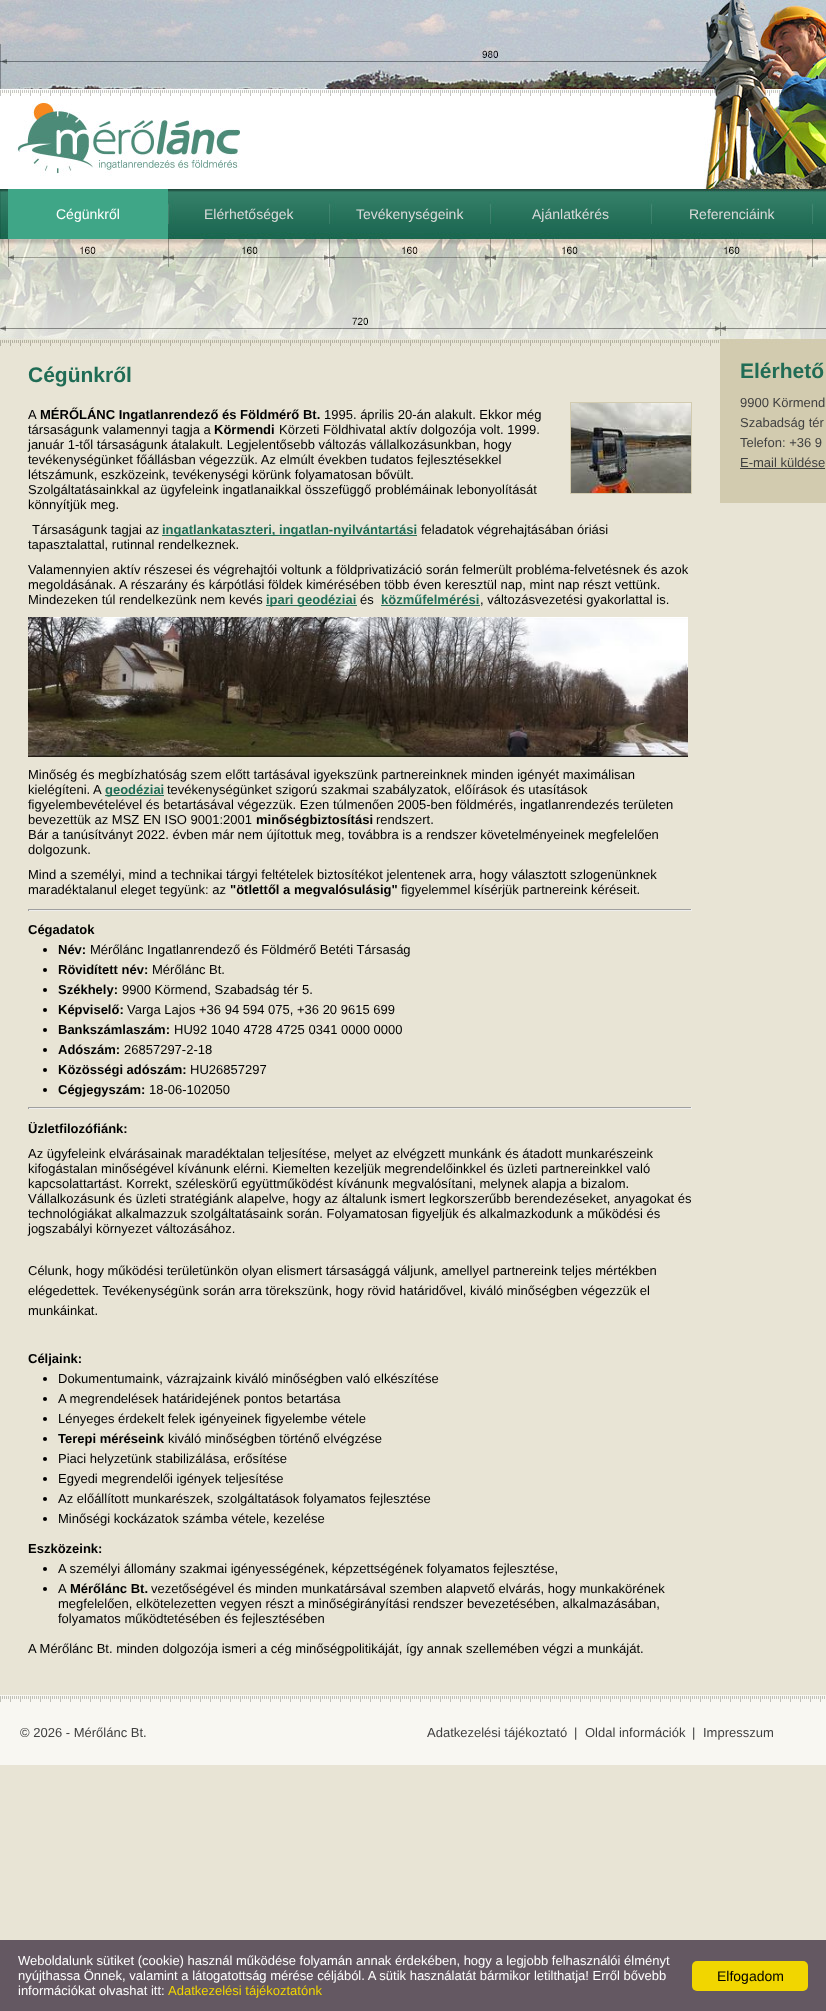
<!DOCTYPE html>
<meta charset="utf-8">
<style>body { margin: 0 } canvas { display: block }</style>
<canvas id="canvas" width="826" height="2011"></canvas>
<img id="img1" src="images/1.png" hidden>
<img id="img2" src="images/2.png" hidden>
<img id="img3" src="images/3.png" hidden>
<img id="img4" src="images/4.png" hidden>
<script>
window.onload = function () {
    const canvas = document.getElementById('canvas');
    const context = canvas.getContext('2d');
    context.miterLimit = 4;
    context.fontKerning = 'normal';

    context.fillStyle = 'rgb(232, 228, 213)';
    context.fillRect(0, 0, 826, 2011);
    context.drawImage(document.getElementById('img1'), 0, 0, 826, 349);
    context.fillStyle = 'rgb(63, 166, 135)';
    context.fillRect(8, 189, 160, 50);
    context.strokeStyle = 'rgb(210, 203, 175)';
    context.strokeRect(570.5, 402.5, 121, 91);
    context.drawImage(document.getElementById('img2'), 571, 403, 120, 90);
    context.fillStyle = 'rgb(33, 110, 86)';
    context.fillRect(162, 535, 255, 1);
    context.fillRect(266, 605, 91, 1);
    context.fillRect(381, 605, 99, 1);
    context.drawImage(document.getElementById('img3'), 28, 617, 660, 140);
    context.fillRect(105, 795, 59, 1);
    context.fillStyle = 'rgb(159, 159, 159)';
    context.fillRect(28, 909, 664, 1);
    context.fillStyle = 'rgb(238, 238, 238)';
    context.fillRect(691, 909, 1, 2);
    context.fillRect(28, 910, 664, 1);
    context.fillStyle = 'rgb(159, 159, 159)';
    context.fillRect(28, 909, 1, 2);
    context.fillStyle = 'rgb(0, 0, 0)';
    context.beginPath();
    context.arc(45, 950, 2, 0, 2 * Math.PI);
    context.fill();
    context.beginPath();
    context.arc(45, 970, 2, 0, 2 * Math.PI);
    context.fill();
    context.beginPath();
    context.arc(45, 990, 2, 0, 2 * Math.PI);
    context.fill();
    context.beginPath();
    context.arc(45, 1010, 2, 0, 2 * Math.PI);
    context.fill();
    context.beginPath();
    context.arc(45, 1030, 2, 0, 2 * Math.PI);
    context.fill();
    context.beginPath();
    context.arc(45, 1050, 2, 0, 2 * Math.PI);
    context.fill();
    context.beginPath();
    context.arc(45, 1070, 2, 0, 2 * Math.PI);
    context.fill();
    context.beginPath();
    context.arc(45, 1090, 2, 0, 2 * Math.PI);
    context.fill();
    context.fillStyle = 'rgb(159, 159, 159)';
    context.fillRect(28, 1107, 664, 1);
    context.fillStyle = 'rgb(238, 238, 238)';
    context.fillRect(691, 1107, 1, 2);
    context.fillRect(28, 1108, 664, 1);
    context.fillStyle = 'rgb(159, 159, 159)';
    context.fillRect(28, 1107, 1, 2);
    context.fillStyle = 'rgb(0, 0, 0)';
    context.beginPath();
    context.arc(45, 1379, 2, 0, 2 * Math.PI);
    context.fill();
    context.beginPath();
    context.arc(45, 1399, 2, 0, 2 * Math.PI);
    context.fill();
    context.beginPath();
    context.arc(45, 1419, 2, 0, 2 * Math.PI);
    context.fill();
    context.beginPath();
    context.arc(45, 1439, 2, 0, 2 * Math.PI);
    context.fill();
    context.beginPath();
    context.arc(45, 1459, 2, 0, 2 * Math.PI);
    context.fill();
    context.beginPath();
    context.arc(45, 1479, 2, 0, 2 * Math.PI);
    context.fill();
    context.beginPath();
    context.arc(45, 1499, 2, 0, 2 * Math.PI);
    context.fill();
    context.beginPath();
    context.arc(45, 1519, 2, 0, 2 * Math.PI);
    context.fill();
    context.beginPath();
    context.arc(45, 1569, 2, 0, 2 * Math.PI);
    context.fill();
    context.beginPath();
    context.arc(45, 1589, 2, 0, 2 * Math.PI);
    context.fill();
    context.fillStyle = 'rgb(210, 203, 175)';
    context.fillRect(720, 349, 106, 154);
    context.fillStyle = 'rgb(64, 64, 64)';
    context.fillRect(740, 468, 85, 1);
    context.drawImage(document.getElementById('img4'), 0, 1695, 826, 70);
    context.fillStyle = 'rgb(100, 88, 98)';
    context.fillRect(0, 1940, 826, 71);
    context.fillStyle = 'rgb(241, 214, 0)';
    context.beginPath();
    context.roundRect(692, 1961, 116, 30, 5);
    context.fill();
    context.font = '14px Liberation Sans';
    context.fillStyle = 'rgb(255, 255, 255)';
    context.fillText('Cégünkről', 56, 219);
    context.fillStyle = 'rgb(218, 218, 218)';
    context.fillText('Elérhetőségek', 204, 219);
    context.fillText('Tevékenységeink', 356, 219);
    context.fillText('Ajánlatkérés', 532, 219);
    context.fillText('Referenciáink', 689, 219);
    context.font = 'bold 21px Liberation Sans';
    context.fillStyle = 'rgb(32, 108, 85)';
    context.fillText('Cégünkről', 28, 382);
    context.font = '13px Liberation Sans';
    context.fillStyle = 'rgb(0, 0, 0)';
    context.fillText('A', 28, 419);
    context.font = 'bold 13px Liberation Sans';
    context.fillText('MÉRŐLÁNC Ingatlanrendező és Földmérő Bt.', 40, 419);
    context.font = '13px Liberation Sans';
    context.fillText('1995. április 20-án alakult. Ekkor még', 324, 419);
    context.fillText('társaságunk valamennyi tagja a', 28, 434);
    context.font = 'bold 13px Liberation Sans';
    context.fillText('Körmendi', 214, 434);
    context.font = '13px Liberation Sans';
    context.fillText('Körzeti Földhivatal aktív dolgozója volt. 1999.', 279, 434);
    context.fillText('január 1-től társaságunk átalakult. Legjelentősebb változás vállalkozásunkban, hogy', 28, 449);
    context.fillText('tevékenységünket főállásban végezzük. Az elmúlt években tudatos fejlesztésekkel', 28, 464);
    context.fillText('létszámunk, eszközeink, tevékenységi körünk folyamatosan bővült.', 28, 479);
    context.fillText('Szolgáltatásainkkal az ügyfeleink ingatlanaikkal összefüggő problémáinak lebonyolítását', 28, 494);
    context.fillText('könnyítjük meg.', 28, 509);
    context.fillText('Társaságunk tagjai az', 32, 534);
    context.font = 'bold 13px Liberation Sans';
    context.fillStyle = 'rgb(32, 108, 85)';
    context.fillText('ingatlankataszteri, ingatlan-nyilvántartási', 162, 534);
    context.font = '13px Liberation Sans';
    context.fillStyle = 'rgb(0, 0, 0)';
    context.fillText('feladatok végrehajtásában óriási', 421, 534);
    context.fillText('tapasztalattal, rutinnal rendelkeznek.', 28, 549);
    context.fillText('Valamennyien aktív részesei és végrehajtói voltunk a földprivatizáció során felmerült probléma-felvetésnek és azok', 28, 574);
    context.fillText('megoldásának. A részarány és kárpótlási földek kimérésében több éven keresztül nap, mint nap részt vettünk.', 28, 589);
    context.fillText('Mindezeken túl rendelkezünk nem kevés', 28, 604);
    context.font = 'bold 13px Liberation Sans';
    context.fillStyle = 'rgb(32, 108, 85)';
    context.fillText('ipari geodéziai', 266, 604);
    context.font = '13px Liberation Sans';
    context.fillStyle = 'rgb(0, 0, 0)';
    context.fillText('és', 360, 604);
    context.font = 'bold 13px Liberation Sans';
    context.fillStyle = 'rgb(32, 108, 85)';
    context.fillText('közműfelmérési', 381, 604);
    context.font = '13px Liberation Sans';
    context.fillStyle = 'rgb(0, 0, 0)';
    context.fillText(', változásvezetési gyakorlattal is.', 480, 604);
    context.fillText('Minőség és megbízhatóság szem előtt tartásával igyekszünk partnereinknek minden igényét maximálisan', 28, 779);
    context.fillText('kielégíteni. A', 28, 794);
    context.font = 'bold 13px Liberation Sans';
    context.fillStyle = 'rgb(32, 108, 85)';
    context.fillText('geodéziai', 105, 794);
    context.font = '13px Liberation Sans';
    context.fillStyle = 'rgb(0, 0, 0)';
    context.fillText('tevékenységünket szigorú szakmai szabályzatok, előírások és utasítások', 167, 794);
    context.fillText('figyelembevételével és betartásával végezzük. Ezen túlmenően 2005-ben földmérés, ingatlanrendezés területen', 28, 809);
    context.fillText('bevezettük az MSZ EN ISO 9001:2001', 28, 824);
    context.font = 'bold 13px Liberation Sans';
    context.fillText('minőségbiztosítási', 256, 824);
    context.font = '13px Liberation Sans';
    context.fillText('rendszert.', 376, 824);
    context.fillText('Bár a tanúsítványt 2022. évben már nem újítottuk meg, továbbra is a rendszer követelményeinek megfelelően', 28, 839);
    context.fillText('dolgozunk.', 28, 854);
    context.fillText('Mind a személyi, mind a technikai tárgyi feltételek biztosítékot jelentenek arra, hogy választott szlogenünknek', 28, 879);
    context.fillText('maradéktalanul eleget tegyünk: az', 28, 894);
    context.font = 'bold 13px Liberation Sans';
    context.fillText('"ötlettől a megvalósulásig"', 230, 894);
    context.font = '13px Liberation Sans';
    context.fillText('figyelemmel kísérjük partnereink kéréseit.', 401, 894);
    context.font = 'bold 13px Liberation Sans';
    context.fillText('Cégadatok', 28, 934);
    context.fillText('Név:', 58, 954);
    context.font = '13px Liberation Sans';
    context.fillText('Mérőlánc Ingatlanrendező és Földmérő Betéti Társaság', 90, 954);
    context.font = 'bold 13px Liberation Sans';
    context.fillText('Rövidített név:', 58, 974);
    context.font = '13px Liberation Sans';
    context.fillText('Mérőlánc Bt.', 152, 974);
    context.font = 'bold 13px Liberation Sans';
    context.fillText('Székhely:', 58, 994);
    context.font = '13px Liberation Sans';
    context.fillText('9900 Körmend, Szabadság tér 5.', 122, 994);
    context.font = 'bold 13px Liberation Sans';
    context.fillText('Képviselő:', 58, 1014);
    context.font = '13px Liberation Sans';
    context.fillText('Varga Lajos +36 94 594 075, +36 20 9615 699', 127, 1014);
    context.font = 'bold 13px Liberation Sans';
    context.fillText('Bankszámlaszám:', 58, 1034);
    context.font = '13px Liberation Sans';
    context.fillText('HU92 1040 4728 4725 0341 0000 0000', 174, 1034);
    context.font = 'bold 13px Liberation Sans';
    context.fillText('Adószám:', 58, 1054);
    context.font = '13px Liberation Sans';
    context.fillText('26857297-2-18', 124, 1054);
    context.font = 'bold 13px Liberation Sans';
    context.fillText('Közösségi adószám:', 58, 1074);
    context.font = '13px Liberation Sans';
    context.fillText('HU26857297', 190, 1074);
    context.font = 'bold 13px Liberation Sans';
    context.fillText('Cégjegyszám:', 58, 1094);
    context.font = '13px Liberation Sans';
    context.fillText('18-06-102050', 149, 1094);
    context.font = 'bold 13px Liberation Sans';
    context.fillText('Üzletfilozófiánk:', 28, 1133);
    context.font = '13px Liberation Sans';
    context.fillText('Az ügyfeleink elvárásainak maradéktalan teljesítése, melyet az elvégzett munkánk és átadott munkarészeink', 28, 1158);
    context.fillText('kifogástalan minőségével kívánunk elérni. Kiemelten kezeljük megrendelőinkkel és üzleti partnereinkkel való', 28, 1173);
    context.fillText('kapcsolattartást. Korrekt, széleskörű együttműködést kívánunk megvalósítani, melynek alapja a bizalom.', 28, 1188);
    context.fillText('Vállalkozásunk és üzleti stratégiánk alapelve, hogy az általunk ismert legkorszerűbb berendezéseket, anyagokat és', 28, 1203);
    context.fillText('technológiákat alkalmazzuk szolgáltatásaink során. Folyamatosan figyeljük és alkalmazkodunk a működési és', 28, 1218);
    context.fillText('jogszabályi környezet változásához.', 28, 1233);
    context.fillText('Célunk, hogy működési területünkön olyan elismert társasággá váljunk, amellyel partnereink teljes mértékben', 28, 1275);
    context.fillText('elégedettek. Tevékenységünk során arra törekszünk, hogy rövid határidővel, kiváló minőségben végezzük el', 28, 1295);
    context.fillText('munkáinkat.', 28, 1315);
    context.font = 'bold 13px Liberation Sans';
    context.fillText('Céljaink:', 28, 1363);
    context.font = '13px Liberation Sans';
    context.fillText('Dokumentumaink, vázrajzaink kiváló minőségben való elkészítése', 58, 1383);
    context.fillText('A megrendelések határidejének pontos betartása', 58, 1403);
    context.fillText('Lényeges érdekelt felek igényeinek figyelembe vétele', 58, 1423);
    context.font = 'bold 13px Liberation Sans';
    context.fillText('Terepi méréseink', 58, 1443);
    context.font = '13px Liberation Sans';
    context.fillText('kiváló minőségben történő elvégzése', 168, 1443);
    context.fillText('Piaci helyzetünk stabilizálása, erősítése', 58, 1463);
    context.fillText('Egyedi megrendelői igények teljesítése', 58, 1483);
    context.fillText('Az előállított munkarészek, szolgáltatások folyamatos fejlesztése', 58, 1503);
    context.fillText('Minőségi kockázatok számba vétele, kezelése', 58, 1523);
    context.font = 'bold 13px Liberation Sans';
    context.fillText('Eszközeink:', 28, 1553);
    context.font = '13px Liberation Sans';
    context.fillText('A személyi állomány szakmai igényességének, képzettségének folyamatos fejlesztése,', 58, 1573);
    context.fillText('A', 58, 1593);
    context.font = 'bold 13px Liberation Sans';
    context.fillText('Mérőlánc Bt.', 70, 1593);
    context.font = '13px Liberation Sans';
    context.fillText('vezetőségével és minden munkatársával szemben alapvető elvárás, hogy munkakörének', 151, 1593);
    context.fillText('megfelelően, elkötelezetten vegyen részt a minőségirányítási rendszer bevezetésében, alkalmazásában,', 58, 1608);
    context.fillText('folyamatos működtetésében és fejlesztésében', 58, 1623);
    context.fillText('A Mérőlánc Bt. minden dolgozója ismeri a cég minőségpolitikáját, így annak szellemében végzi a munkáját.', 28, 1653);
    context.font = 'bold 21px Liberation Sans';
    context.fillStyle = 'rgb(32, 108, 85)';
    context.fillText('Elérhető', 740, 378);
    context.font = '13px Liberation Sans';
    context.fillStyle = 'rgb(64, 64, 64)';
    context.fillText('9900 Körmend', 740, 407);
    context.fillText('Szabadság tér', 740, 427);
    context.fillText('Telefon: +36 9', 740, 447);
    context.fillText('E-mail küldése', 740, 467);
    context.fillText('© 2026 - Mérőlánc Bt.', 20, 1737);
    context.fillText('Adatkezelési tájékoztató', 427, 1737);
    context.fillText('|', 574, 1737);
    context.fillText('Oldal információk', 585, 1737);
    context.fillText('|', 692, 1737);
    context.fillText('Impresszum', 703, 1737);
    context.fillStyle = 'rgb(255, 255, 255)';
    context.fillText('Weboldalunk sütiket (cookie) használ működése folyamán annak érdekében, hogy a legjobb felhasználói élményt', 18, 1965);
    context.fillText('nyújthassa Önnek, valamint a látogatottság mérése céljából. A sütik használatát bármikor letilthatja! Erről bővebb', 18, 1980);
    context.fillText('információkat olvashat itt:', 18, 1995);
    context.fillStyle = 'rgb(241, 214, 0)';
    context.fillText('Adatkezelési tájékoztatónk', 168, 1995);
    context.font = '14px Liberation Sans';
    context.fillStyle = 'rgb(0, 0, 0)';
    context.fillText('Elfogadom', 717, 1981);
};
</script>
